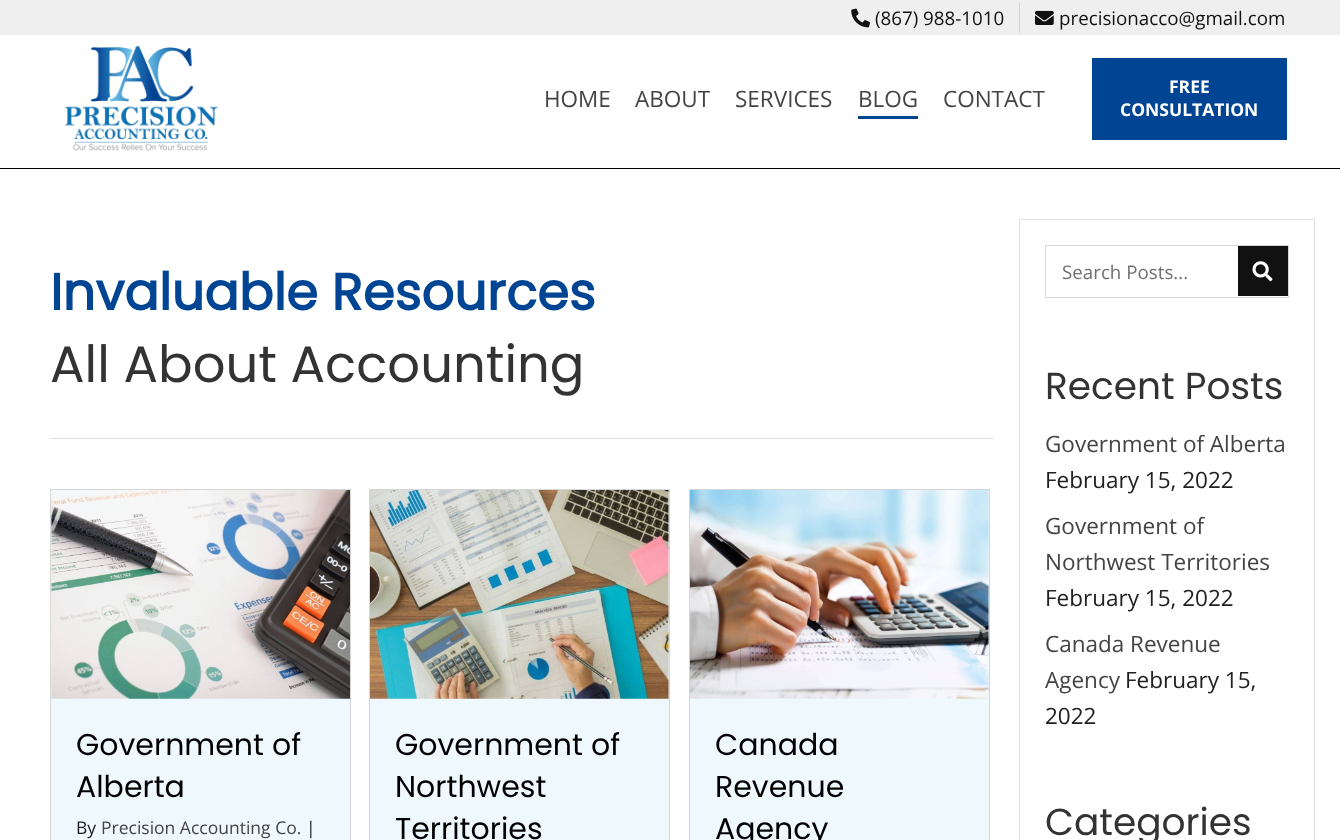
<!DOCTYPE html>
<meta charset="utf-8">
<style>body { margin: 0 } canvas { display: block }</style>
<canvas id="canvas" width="1340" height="840"></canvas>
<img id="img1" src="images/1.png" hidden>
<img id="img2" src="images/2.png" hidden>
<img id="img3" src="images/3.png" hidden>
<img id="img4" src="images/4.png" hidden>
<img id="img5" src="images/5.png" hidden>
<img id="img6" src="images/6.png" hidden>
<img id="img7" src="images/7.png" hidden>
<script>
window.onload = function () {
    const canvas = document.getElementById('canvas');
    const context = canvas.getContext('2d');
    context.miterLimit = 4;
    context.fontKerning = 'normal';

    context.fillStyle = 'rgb(255, 255, 255)';
    context.fillRect(0, 0, 1340, 840);
    context.fillStyle = 'rgb(239, 239, 239)';
    context.fillRect(0, 0, 1340, 35);
    context.drawImage(document.getElementById('img1'), 851, 8, 19, 20);
    context.fillStyle = 'rgb(214, 214, 214)';
    context.fillRect(1019, 3, 1, 30);
    context.drawImage(document.getElementById('img2'), 1035, 10, 19, 15);
    context.fillStyle = 'rgb(0, 0, 0)';
    context.fillRect(0, 168, 1340, 1);
    context.drawImage(document.getElementById('img3'), 64, 46, 154, 105);
    context.fillStyle = 'rgb(0, 68, 148)';
    context.fillRect(858, 116, 60, 3);
    context.fillRect(1092, 58, 195, 82);
    context.fillStyle = 'rgb(224, 224, 224)';
    context.fillRect(50, 438, 944, 1);
    context.fillStyle = 'rgb(239, 248, 252)';
    context.beginPath();
    context.rect(50.5, 489.5, 300, 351);
    context.fill();
    context.strokeStyle = 'rgb(214, 214, 214)';
    context.stroke();
    context.drawImage(document.getElementById('img4'), 51, 490, 299, 209);
    context.beginPath();
    context.rect(369.5, 489.5, 300, 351);
    context.fill();
    context.stroke();
    context.drawImage(document.getElementById('img5'), 370, 490, 299, 209);
    context.beginPath();
    context.rect(689.5, 489.5, 300, 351);
    context.fill();
    context.stroke();
    context.drawImage(document.getElementById('img6'), 690, 490, 299, 209);
    context.strokeStyle = 'rgb(224, 224, 224)';
    context.strokeRect(1019.5, 219.5, 295, 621);
    context.strokeStyle = 'rgb(214, 214, 214)';
    context.strokeRect(1045.5, 245.5, 243, 52);
    context.fillStyle = 'rgb(17, 17, 17)';
    context.fillRect(1238, 246, 50, 50);
    context.drawImage(document.getElementById('img7'), 1252, 261, 21, 21);
    context.font = '18.75px Open Sans';
    context.fillText('(867) 988-1010', 875, 25);
    context.fillText('precisionacco@gmail.com', 1059, 25);
    context.font = '22.5px Open Sans';
    context.fillStyle = 'rgb(68, 68, 68)';
    context.fillText('HOME', 544, 107);
    context.fillText('ABOUT', 635, 107);
    context.fillText('SERVICES', 735, 107);
    context.fillText('BLOG', 858, 107);
    context.fillText('CONTACT', 943, 107);
    context.font = 'bold 17.5px Open Sans';
    context.fillStyle = 'rgb(255, 255, 255)';
    context.fillText('FREE', 1169, 93);
    context.fillText('CONSULTATION', 1120, 116);
    context.font = 'bold 51.25px Poppins';
    context.fillStyle = 'rgb(0, 68, 148)';
    context.fillText('Invaluable Resources', 50, 310);
    context.font = '51.25px Poppins';
    context.fillStyle = 'rgb(51, 51, 51)';
    context.fillText('All About Accounting', 50, 382);
    context.font = '30px Poppins';
    context.fillStyle = 'rgb(0, 0, 0)';
    context.fillText('Government of', 76, 755);
    context.fillText('Alberta', 76, 797);
    context.font = '17.5px Open Sans';
    context.fillStyle = 'rgb(33, 33, 33)';
    context.fillText('By', 76, 834);
    context.fillStyle = 'rgb(68, 68, 68)';
    context.fillText('Precision Accounting Co.', 101, 834);
    context.fillStyle = 'rgb(33, 33, 33)';
    context.fillText('|', 306, 834);
    context.font = '30px Poppins';
    context.fillStyle = 'rgb(0, 0, 0)';
    context.fillText('Government of', 395, 755);
    context.fillText('Northwest', 395, 797);
    context.fillText('Territories', 395, 839);
    context.fillText('Canada', 715, 755);
    context.fillText('Revenue', 715, 797);
    context.fillText('Agency', 715, 839);
    context.font = '18.75px Open Sans';
    context.fillStyle = 'rgb(112, 112, 112)';
    context.fillText('Search Posts...', 1062, 279);
    context.font = '37.5px Poppins';
    context.fillStyle = 'rgb(51, 51, 51)';
    context.fillText('Recent Posts', 1045, 399);
    context.font = '22.5px Open Sans';
    context.fillStyle = 'rgb(68, 68, 68)';
    context.fillText('Government of Alberta', 1045, 452);
    context.fillStyle = 'rgb(33, 33, 33)';
    context.fillText('February 15, 2022', 1045, 488);
    context.fillStyle = 'rgb(68, 68, 68)';
    context.fillText('Government of', 1045, 534);
    context.fillText('Northwest Territories', 1045, 570);
    context.fillStyle = 'rgb(33, 33, 33)';
    context.fillText('February 15, 2022', 1045, 606);
    context.fillStyle = 'rgb(68, 68, 68)';
    context.fillText('Canada Revenue', 1045, 652);
    context.fillText('Agency', 1045, 688);
    context.fillStyle = 'rgb(33, 33, 33)';
    context.fillText('February 15,', 1125, 688);
    context.fillText('2022', 1045, 724);
    context.font = '37.5px Poppins';
    context.fillStyle = 'rgb(51, 51, 51)';
    context.fillText('Categories', 1045, 835);
};
</script>
